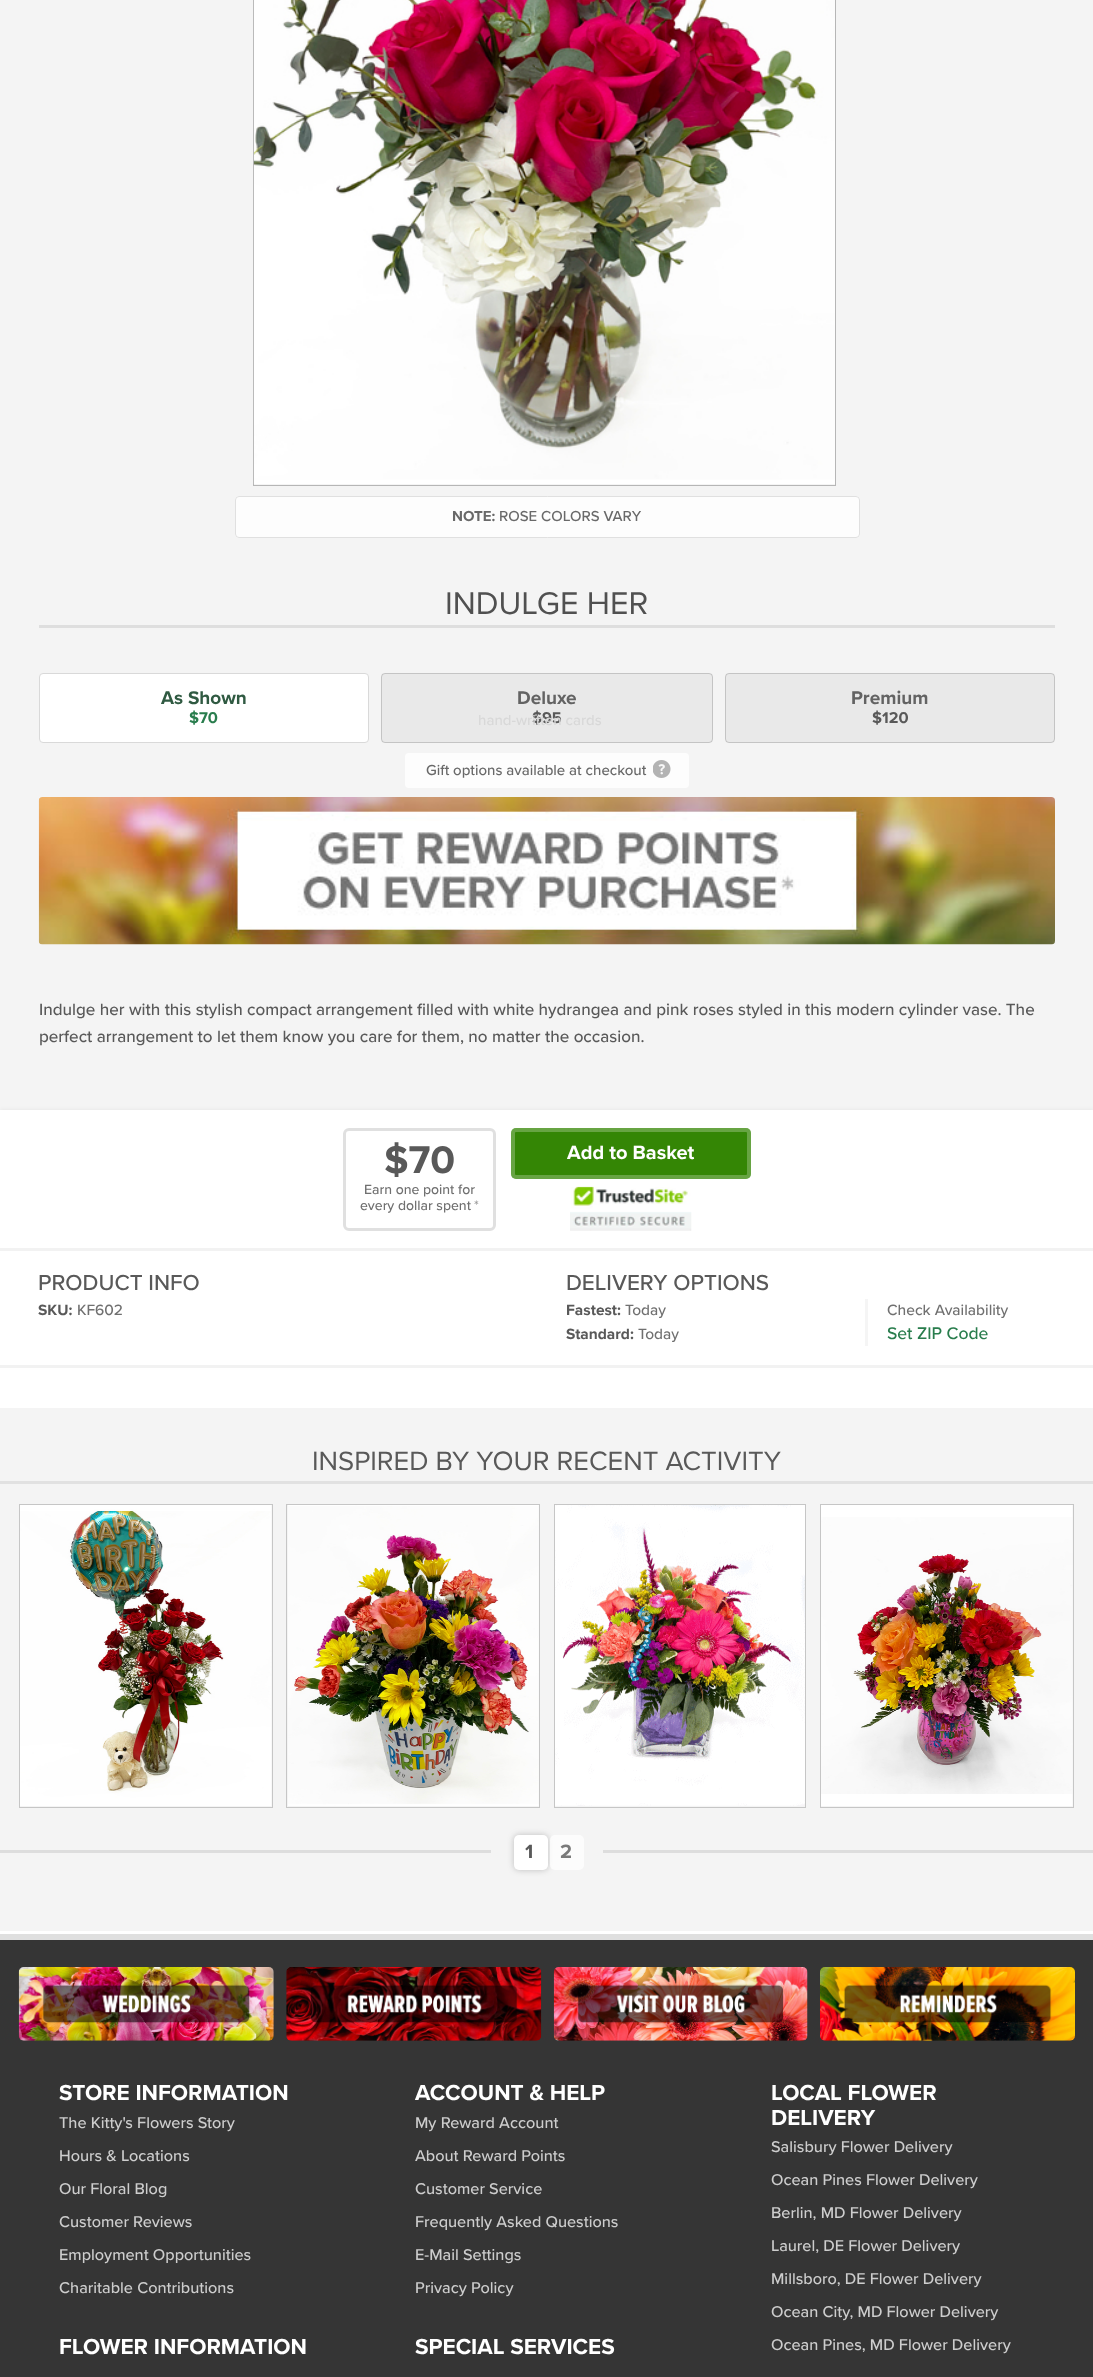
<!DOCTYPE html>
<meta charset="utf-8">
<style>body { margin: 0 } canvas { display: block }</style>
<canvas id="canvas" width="1093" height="2377"></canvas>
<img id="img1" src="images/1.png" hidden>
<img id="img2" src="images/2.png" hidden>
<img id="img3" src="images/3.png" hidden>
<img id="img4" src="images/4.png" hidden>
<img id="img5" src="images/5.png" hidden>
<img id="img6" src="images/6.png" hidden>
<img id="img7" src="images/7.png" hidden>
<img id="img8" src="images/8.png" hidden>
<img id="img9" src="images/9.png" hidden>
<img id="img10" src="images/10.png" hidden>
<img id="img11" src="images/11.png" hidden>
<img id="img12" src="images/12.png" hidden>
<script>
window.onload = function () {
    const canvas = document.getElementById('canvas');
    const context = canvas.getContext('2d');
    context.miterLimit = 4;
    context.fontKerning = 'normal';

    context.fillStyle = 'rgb(244, 244, 244)';
    context.fillRect(0, 0, 1093, 2377);
    context.strokeStyle = 'rgb(182, 182, 182)';
    context.strokeRect(253.5, -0.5, 582, 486);
    context.drawImage(document.getElementById('img1'), 253, 0, 582, 484);
    context.fillStyle = 'rgb(253, 253, 253)';
    context.beginPath();
    context.roundRect(235, 496, 625, 42, 4);
    context.fill();
    context.beginPath();
    context.roundRect(235.5, 496.5, 624, 41, 3.5);
    context.strokeStyle = 'rgba(216, 216, 216, 0.8)';
    context.stroke();
    context.fillStyle = 'rgb(222, 222, 222)';
    context.fillRect(39, 625, 1016, 3);
    context.fillStyle = 'rgb(255, 255, 255)';
    context.beginPath();
    context.roundRect(39.5, 673.5, 329, 69, 3.5);
    context.fill();
    context.strokeStyle = 'rgb(217, 217, 217)';
    context.stroke();
    context.fillStyle = 'rgb(233, 233, 233)';
    context.beginPath();
    context.roundRect(381, 673, 332, 70, 4);
    context.fill();
    context.beginPath();
    context.roundRect(381.5, 673.5, 331, 69, 3.5);
    context.strokeStyle = 'rgba(89, 89, 89, 0.25)';
    context.stroke();
    context.beginPath();
    context.roundRect(725, 673, 330, 70, 4);
    context.fill();
    context.beginPath();
    context.roundRect(725.5, 673.5, 329, 69, 3.5);
    context.stroke();
    context.fillStyle = 'rgb(253, 253, 253)';
    context.beginPath();
    context.roundRect(405, 753, 284, 35, 4);
    context.fill();
    context.drawImage(document.getElementById('img2'), 653, 760, 18, 18);
    context.drawImage(document.getElementById('img3'), 38, 797, 1017, 148);
    context.fillStyle = 'rgba(13, 13, 13, 0.1)';
    context.filter = 'blur(2.5px)';
    context.beginPath();
    context.rect(0, 1111, 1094, 258);
    context.fill();
    context.filter = 'none';
    context.fillStyle = 'rgb(255, 255, 255)';
    context.fillRect(0, 1110, 1093, 255);
    context.beginPath();
    context.roundRect(344.5, 1129.5, 150, 100, 4.5);
    context.strokeStyle = 'rgb(224, 224, 224)';
    context.lineWidth = 3;
    context.stroke();
    context.fillStyle = 'rgb(52, 134, 5)';
    context.beginPath();
    context.roundRect(511, 1128, 240, 51, 5);
    context.fill();
    context.beginPath();
    context.roundRect(513, 1130, 236, 47, 3);
    context.strokeStyle = 'rgba(255, 255, 255, 0.25)';
    context.lineWidth = 4;
    context.stroke();
    context.drawImage(document.getElementById('img4'), 570, 1186, 122, 45);
    context.fillStyle = 'rgb(242, 242, 242)';
    context.fillRect(0, 1248, 1093, 3);
    context.fillStyle = 'rgb(245, 245, 245)';
    context.fillRect(865, 1299, 3, 47);
    context.fillStyle = 'rgb(255, 255, 255)';
    context.fillRect(0, 1368, 1093, 40);
    context.fillStyle = 'rgb(242, 242, 242)';
    context.fillRect(0, 1365, 1093, 3);
    context.fillStyle = 'rgb(225, 225, 225)';
    context.fillRect(0, 1481, 1093, 3);
    context.strokeStyle = 'rgb(198, 198, 198)';
    context.lineWidth = 1;
    context.strokeRect(19.5, 1504.5, 253, 303);
    context.drawImage(document.getElementById('img5'), 20, 1505, 252, 301);
    context.strokeRect(286.5, 1504.5, 253, 303);
    context.drawImage(document.getElementById('img6'), 288, 1505, 251, 301);
    context.strokeRect(554.5, 1504.5, 251, 303);
    context.drawImage(document.getElementById('img7'), 555, 1505, 250, 301);
    context.strokeRect(820.5, 1504.5, 253, 303);
    context.drawImage(document.getElementById('img8'), 821, 1505, 252, 301);
    context.fillStyle = 'rgb(221, 221, 221)';
    context.fillRect(0, 1850, 491, 3);
    context.fillStyle = 'rgba(89, 89, 89, 0.35)';
    context.filter = 'blur(3px)';
    context.beginPath();
    context.roundRect(514, 1835, 34, 35, 5);
    context.fill();
    context.filter = 'none';
    context.fillStyle = 'rgb(255, 255, 255)';
    context.beginPath();
    context.roundRect(514, 1835, 34, 35, 5);
    context.fill();
    context.fillStyle = 'rgba(255, 255, 255, 0.75)';
    context.beginPath();
    context.roundRect(550, 1835, 34, 35, 5);
    context.fill();
    context.fillStyle = 'rgb(221, 221, 221)';
    context.fillRect(603, 1850, 490, 3);
    context.strokeStyle = 'rgb(255, 255, 255)';
    context.lineWidth = 9;
    context.strokeRect(-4.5, 1935.5, 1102, 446);
    context.strokeStyle = 'rgb(223, 223, 223)';
    context.lineWidth = 6;
    context.strokeRect(-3, 1937, 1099, 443);
    context.fillStyle = 'rgb(53, 53, 53)';
    context.fillRect(0, 1940, 1093, 437);
    context.drawImage(document.getElementById('img9'), 18, 1967, 256, 74);
    context.drawImage(document.getElementById('img10'), 286, 1967, 256, 74);
    context.drawImage(document.getElementById('img11'), 553, 1967, 255, 74);
    context.drawImage(document.getElementById('img12'), 820, 1967, 255, 74);
    context.font = 'bold 15px Proxima Nova';
    context.fillStyle = 'rgb(105, 105, 105)';
    context.fillText('NOTE:', 452, 521);
    context.font = '500 15px Proxima Nova';
    context.fillText('ROSE COLORS VARY', 499, 521);
    context.font = '32.5px Proxima Nova';
    context.fillStyle = 'rgb(80, 80, 80)';
    context.fillText('INDULGE HER', 445, 614);
    context.font = 'bold 19px Proxima Nova';
    context.fillStyle = 'rgb(48, 90, 66)';
    context.fillText('As Shown', 161, 704);
    context.font = 'bold 16.25px Proxima Nova';
    context.fillStyle = 'rgb(41, 125, 77)';
    context.fillText('$70', 189, 723);
    context.font = 'bold 19px Proxima Nova';
    context.fillStyle = 'rgb(99, 99, 99)';
    context.fillText('Deluxe', 517, 704);
    context.font = 'bold 16.25px Proxima Nova';
    context.fillStyle = 'rgb(89, 89, 89)';
    context.fillText('$95', 532, 723);
    context.font = 'bold 19px Proxima Nova';
    context.fillStyle = 'rgb(99, 99, 99)';
    context.fillText('Premium', 851, 704);
    context.font = 'bold 16.25px Proxima Nova';
    context.fillStyle = 'rgb(89, 89, 89)';
    context.fillText('$120', 872, 723);
    context.font = '500 15px Proxima Nova';
    context.fillStyle = 'rgb(216, 216, 216)';
    context.fillText('hand-written cards', 478, 725);
    context.fillStyle = 'rgb(105, 105, 105)';
    context.fillText('Gift options available at checkout', 426, 775);
    context.font = '500 17px Proxima Nova';
    context.fillStyle = 'rgb(89, 89, 89)';
    context.fillText('Indulge her with this stylish compact arrangement filled with white hydrangea and pink roses styled in this modern cylinder vase. The', 39, 1015);
    context.fillText('perfect arrangement to let them know you care for them, no matter the occasion.', 39, 1042);
    context.font = 'bold 40px Proxima Nova';
    context.fillText('$70', 384, 1173);
    context.font = '500 14px Proxima Nova';
    context.fillStyle = 'rgb(112, 112, 112)';
    context.fillText('Earn one point for', 364, 1194);
    context.fillText('every dollar spent', 360, 1210);
    context.fillStyle = 'rgb(155, 155, 155)';
    context.fillText('*', 474, 1210);
    context.font = 'bold 20px Proxima Nova';
    context.fillStyle = 'rgb(255, 255, 255)';
    context.fillText('Add to Basket', 567, 1159);
    context.font = '500 22.5px Proxima Nova';
    context.fillStyle = 'rgb(89, 89, 89)';
    context.fillText('PRODUCT INFO', 38, 1290);
    context.font = 'bold 15.5px Proxima Nova';
    context.fillText('SKU:', 38, 1315);
    context.font = '500 15.5px Proxima Nova';
    context.fillStyle = 'rgb(112, 112, 112)';
    context.fillText('KF602', 77, 1315);
    context.font = '500 22.5px Proxima Nova';
    context.fillStyle = 'rgb(89, 89, 89)';
    context.fillText('DELIVERY OPTIONS', 566, 1290);
    context.font = 'bold 15.5px Proxima Nova';
    context.fillText('Fastest:', 566, 1315);
    context.font = '500 15.5px Proxima Nova';
    context.fillStyle = 'rgb(112, 112, 112)';
    context.fillText('Today', 625, 1315);
    context.font = 'bold 15.5px Proxima Nova';
    context.fillStyle = 'rgb(89, 89, 89)';
    context.fillText('Standard:', 566, 1339);
    context.font = '500 15.5px Proxima Nova';
    context.fillStyle = 'rgb(112, 112, 112)';
    context.fillText('Today', 638, 1339);
    context.fillText('Check Availability', 887, 1315);
    context.font = '500 17.5px Proxima Nova';
    context.fillStyle = 'rgb(41, 125, 77)';
    context.fillText('Set ZIP Code', 887, 1339);
    context.font = '27.5px Proxima Nova';
    context.fillStyle = 'rgb(89, 89, 89)';
    context.fillText('INSPIRED BY YOUR RECENT ACTIVITY', 312, 1470);
    context.font = 'bold 20px Proxima Nova';
    context.fillText('1', 525, 1858);
    context.fillStyle = 'rgb(122, 122, 122)';
    context.fillText('2', 560, 1858);
    context.font = 'bold 22.5px Proxima Nova';
    context.fillStyle = 'rgb(255, 255, 255)';
    context.fillText('STORE INFORMATION', 59, 2100);
    context.font = '500 16.25px Proxima Nova';
    context.fillStyle = 'rgb(205, 205, 205)';
    context.fillText('The Kitty\'s Flowers Story', 59, 2128);
    context.fillText('Hours & Locations', 59, 2161);
    context.fillText('Our Floral Blog', 59, 2194);
    context.fillText('Customer Reviews', 59, 2227);
    context.fillText('Employment Opportunities', 59, 2260);
    context.fillText('Charitable Contributions', 59, 2293);
    context.font = 'bold 22.5px Proxima Nova';
    context.fillStyle = 'rgb(255, 255, 255)';
    context.fillText('FLOWER INFORMATION', 59, 2354);
    context.fillText('ACCOUNT & HELP', 415, 2100);
    context.font = '500 16.25px Proxima Nova';
    context.fillStyle = 'rgb(205, 205, 205)';
    context.fillText('My Reward Account', 415, 2128);
    context.fillText('About Reward Points', 415, 2161);
    context.fillText('Customer Service', 415, 2194);
    context.fillText('Frequently Asked Questions', 415, 2227);
    context.fillText('E-Mail Settings', 415, 2260);
    context.fillText('Privacy Policy', 415, 2293);
    context.font = 'bold 22.5px Proxima Nova';
    context.fillStyle = 'rgb(255, 255, 255)';
    context.fillText('SPECIAL SERVICES', 415, 2354);
    context.fillText('LOCAL FLOWER', 771, 2100);
    context.fillText('DELIVERY', 771, 2125);
    context.font = '500 16.25px Proxima Nova';
    context.fillStyle = 'rgb(205, 205, 205)';
    context.fillText('Salisbury Flower Delivery', 771, 2152);
    context.fillText('Ocean Pines Flower Delivery', 771, 2185);
    context.fillText('Berlin, MD Flower Delivery', 771, 2218);
    context.fillText('Laurel, DE Flower Delivery', 771, 2251);
    context.fillText('Millsboro, DE Flower Delivery', 771, 2284);
    context.fillText('Ocean City, MD Flower Delivery', 771, 2317);
    context.fillText('Ocean Pines, MD Flower Delivery', 771, 2350);
};
</script>
